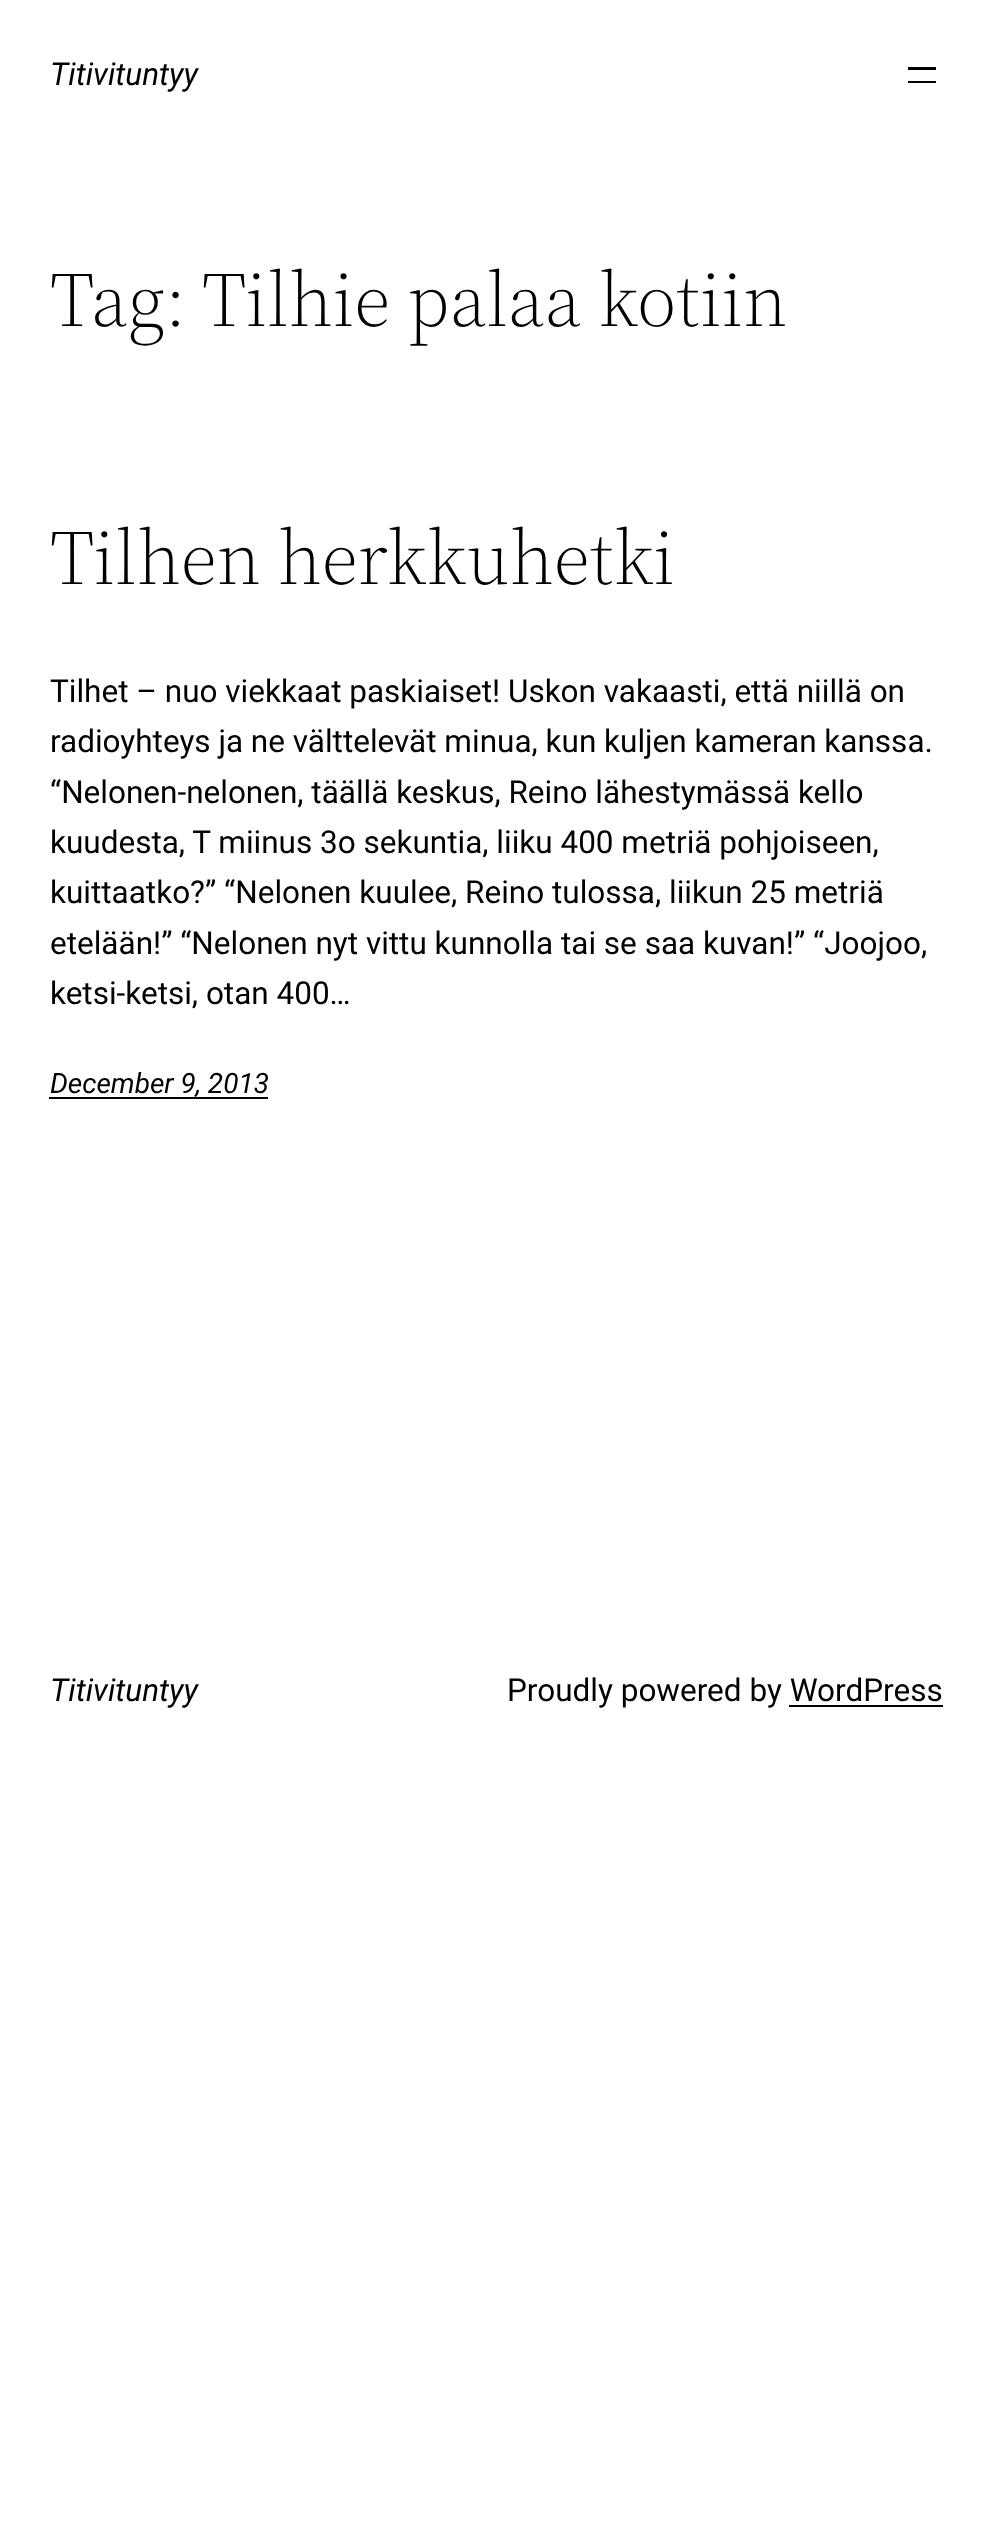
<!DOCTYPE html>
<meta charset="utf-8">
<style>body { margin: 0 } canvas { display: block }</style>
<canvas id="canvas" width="992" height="2538"></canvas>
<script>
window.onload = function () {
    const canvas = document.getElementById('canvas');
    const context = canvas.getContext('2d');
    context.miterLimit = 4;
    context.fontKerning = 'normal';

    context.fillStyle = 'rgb(255, 255, 255)';
    context.fillRect(0, 0, 992, 2538);
    context.fillStyle = 'rgb(0, 0, 0)';
    context.fillRect(908, 67, 28, 3);
    context.fillRect(908, 81, 28, 2);
    context.fillRect(49, 1097, 219, 2);
    context.fillRect(789, 1705, 154, 2);
    context.font = 'italic 31.5px Roboto';
    context.fillText('Titivituntyy', 50, 85);
    context.font = '300 77px "Source Serif 4"';
    context.fillText('Tag:', 50, 326);
    context.fillText('Tilhie palaa kotiin', 202, 326);
    context.fillText('Tilhen herkkuhetki', 50, 584);
    context.font = '31.5px Roboto';
    context.fillText('Tilhet – nuo viekkaat paskiaiset! Uskon vakaasti, että niillä on', 50, 702);
    context.fillText('radioyhteys ja ne välttelevät minua, kun kuljen kameran kanssa.', 50, 752);
    context.fillText('“Nelonen-nelonen, täällä keskus, Reino lähestymässä kello', 50, 803);
    context.fillText('kuudesta, T miinus 3o sekuntia, liiku 400 metriä pohjoiseen,', 50, 853);
    context.fillText('kuittaatko?” “Nelonen kuulee, Reino tulossa, liikun 25 metriä', 50, 903);
    context.fillText('etelään!” “Nelonen nyt vittu kunnolla tai se saa kuvan!” “Joojoo,', 50, 954);
    context.fillText('ketsi-ketsi, otan 400…', 50, 1004);
    context.font = 'italic 28px Roboto';
    context.fillText('December 9, 2013', 50, 1093);
    context.font = 'italic 31.5px Roboto';
    context.fillText('Titivituntyy', 50, 1701);
    context.font = '31.5px Roboto';
    context.fillText('Proudly powered by WordPress', 507, 1701);
};
</script>
